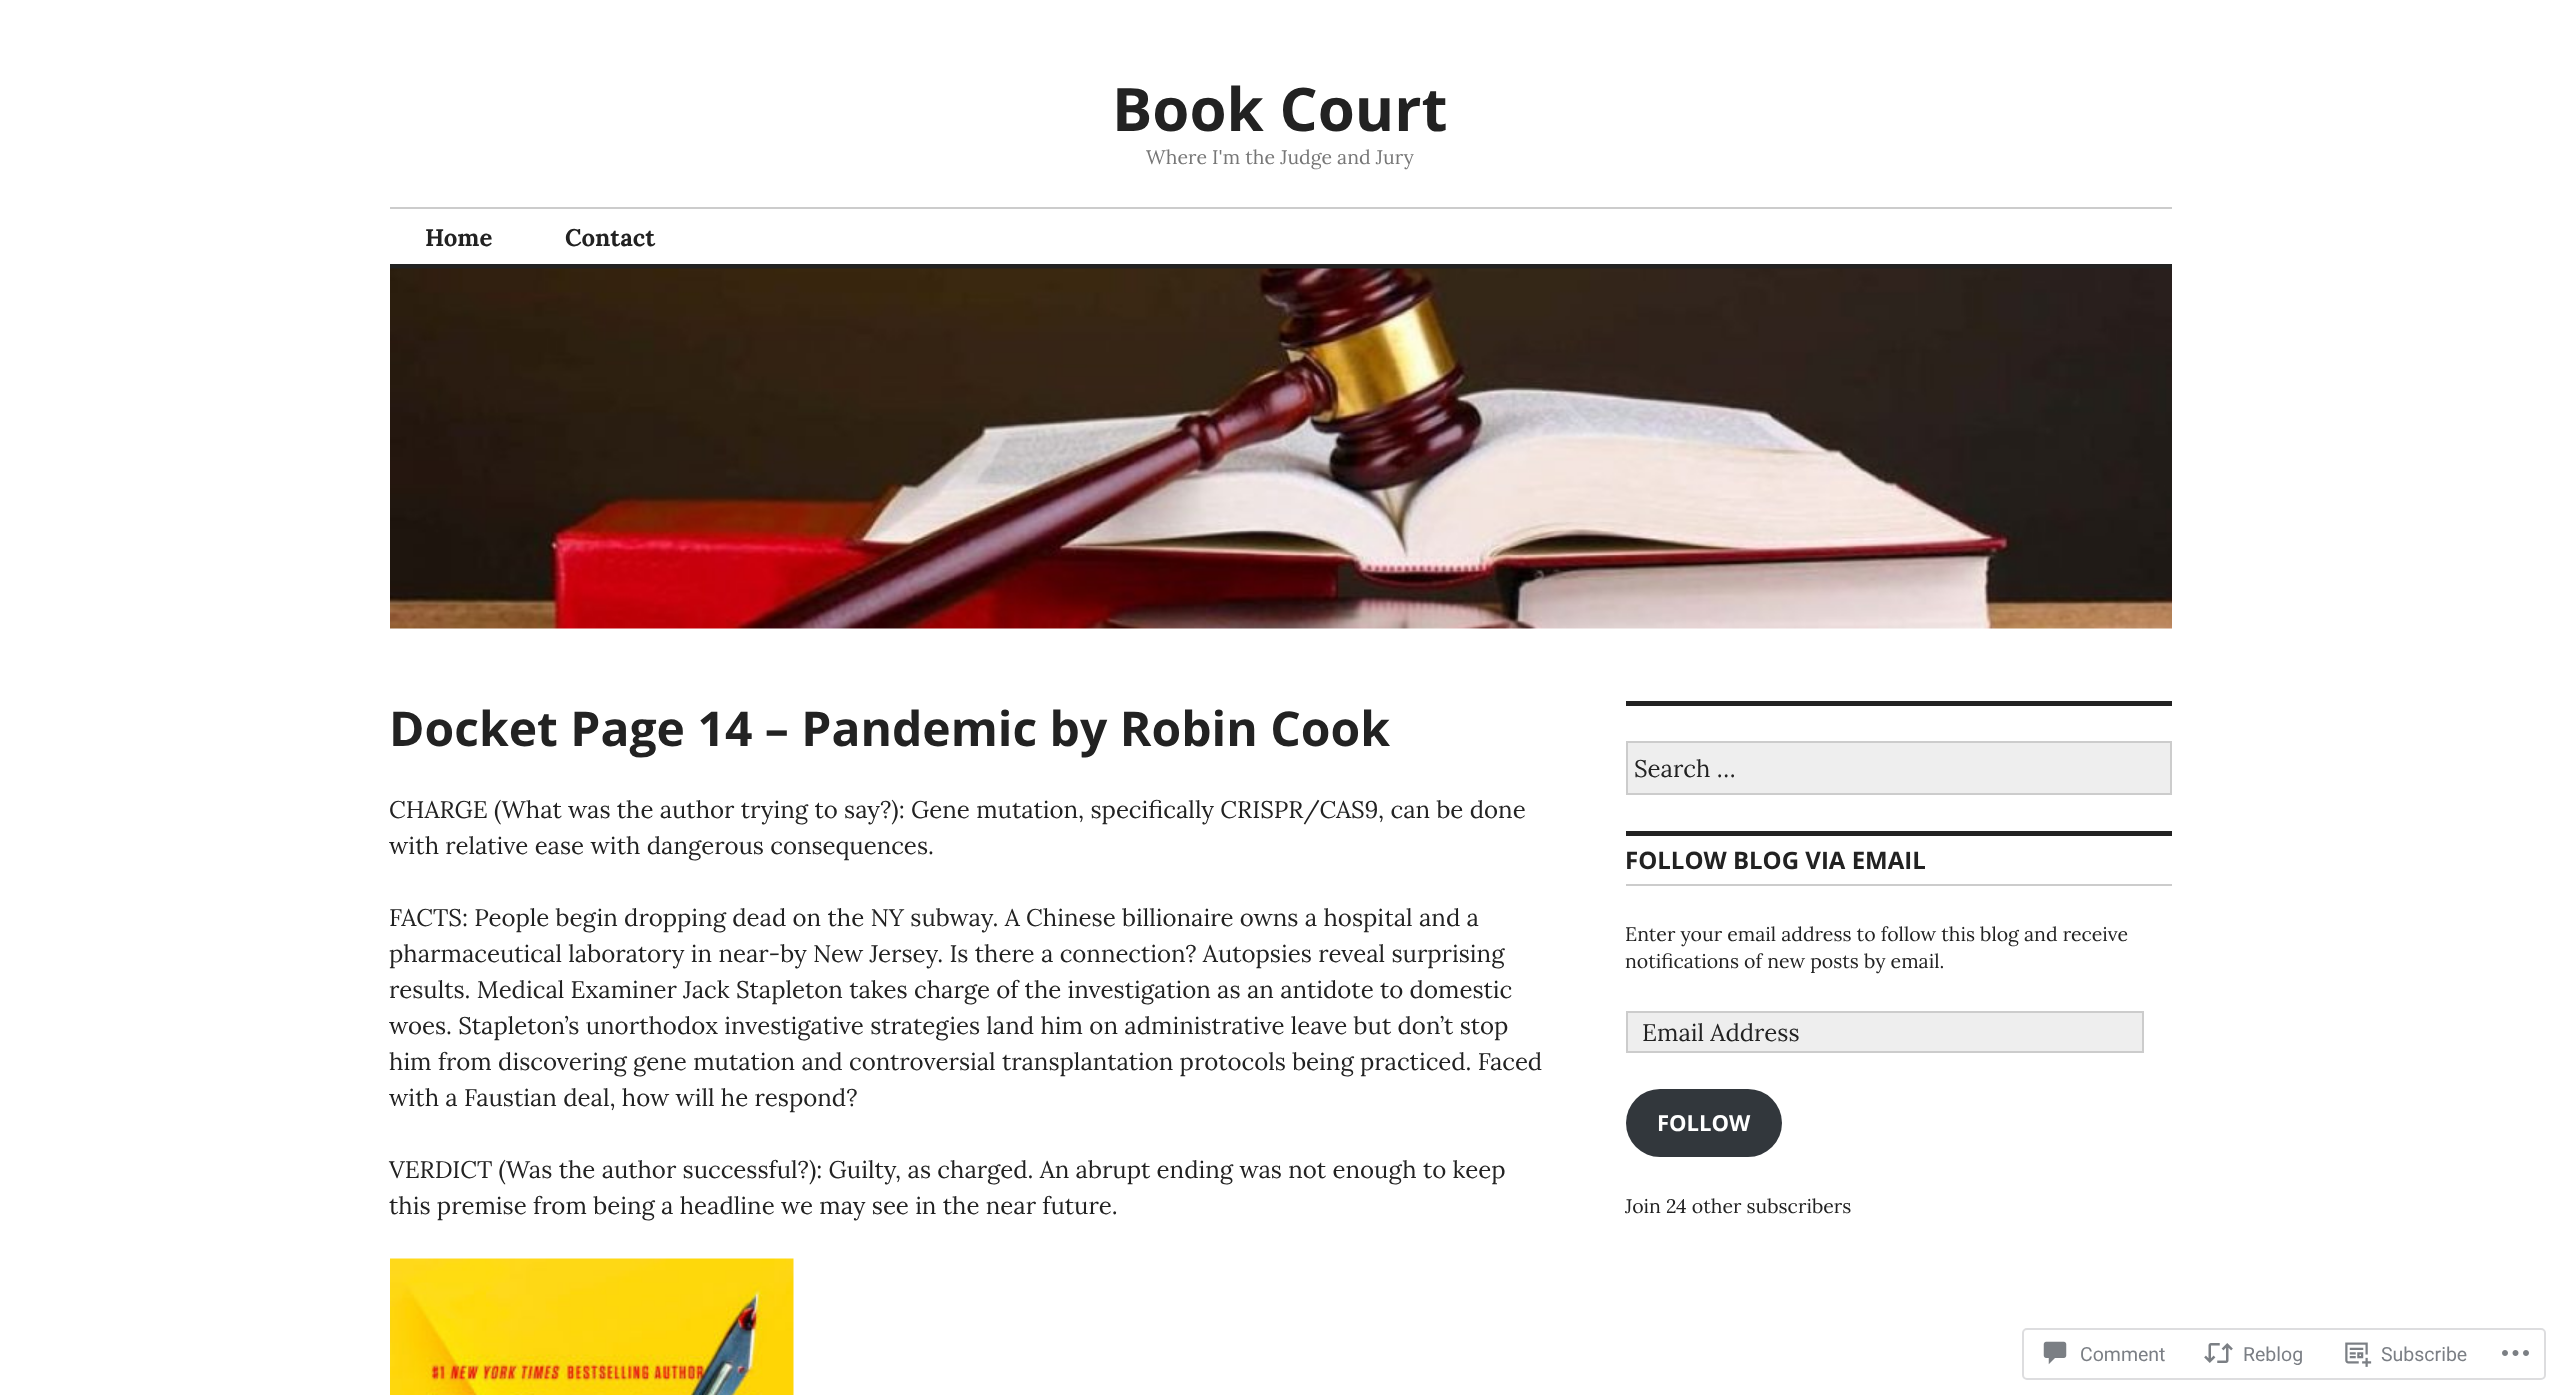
<!DOCTYPE html>
<meta charset="utf-8">
<style>body { margin: 0 } canvas { display: block }</style>
<canvas id="canvas" width="2560" height="1395"></canvas>
<img id="img1" src="images/1.png" hidden>
<img id="img2" src="images/2.png" hidden>
<img id="img3" src="images/3.png" hidden>
<img id="img4" src="images/4.png" hidden>
<img id="img5" src="images/5.png" hidden>
<img id="img6" src="images/6.png" hidden>
<script>
window.onload = function () {
    const canvas = document.getElementById('canvas');
    const context = canvas.getContext('2d');
    context.miterLimit = 4;
    context.fontKerning = 'normal';

    context.fillStyle = 'rgb(255, 255, 255)';
    context.fillRect(0, 0, 2560, 1395);
    context.fillStyle = 'rgb(204, 204, 204)';
    context.fillRect(390, 207, 1782, 2);
    context.fillStyle = 'rgb(34, 34, 34)';
    context.fillRect(390, 264, 1782, 5);
    context.drawImage(document.getElementById('img1'), 390, 268, 1782, 361);
    context.drawImage(document.getElementById('img2'), 390, 1258, 404, 137);
    context.fillRect(1626, 701, 546, 5);
    context.fillStyle = 'rgb(238, 238, 238)';
    context.beginPath();
    context.rect(1627, 742, 544, 52);
    context.fill();
    context.strokeStyle = 'rgb(204, 204, 204)';
    context.lineWidth = 2;
    context.stroke();
    context.fillStyle = 'rgb(34, 34, 34)';
    context.fillRect(1626, 831, 546, 5);
    context.fillStyle = 'rgb(204, 204, 204)';
    context.fillRect(1626, 884, 546, 2);
    context.fillStyle = 'rgb(238, 238, 238)';
    context.beginPath();
    context.rect(1627, 1012, 516, 40);
    context.fill();
    context.stroke();
    context.fillStyle = 'rgb(50, 55, 60)';
    context.beginPath();
    context.roundRect(1626, 1089, 156, 68, 34);
    context.fill();
    context.beginPath();
    context.roundRect(2023, 1329, 522, 50, 4);
    context.strokeStyle = 'rgb(221, 221, 223)';
    context.stroke();
    context.drawImage(document.getElementById('img3'), 2043, 1341, 24, 24);
    context.drawImage(document.getElementById('img4'), 2204, 1343, 29, 20);
    context.drawImage(document.getElementById('img5'), 2345, 1342, 27, 25);
    context.drawImage(document.getElementById('img6'), 2502, 1350, 27, 6);
    context.font = 'bold 60px Open Sans';
    context.fillStyle = 'rgb(34, 34, 34)';
    context.fillText('Book Court', 1112, 131);
    context.font = '19.5px Lora';
    context.fillStyle = 'rgb(119, 119, 119)';
    context.fillText('Where I\'m the Judge and Jury', 1146, 164);
    context.font = 'bold 24px Lora';
    context.fillStyle = 'rgb(34, 34, 34)';
    context.fillText('Home', 425, 246);
    context.fillText('Contact', 565, 246);
    context.font = 'bold 48px Open Sans';
    context.fillText('Docket Page 14 – Pandemic by Robin Cook', 389, 746);
    context.font = '24px Lora';
    context.fillText('CHARGE (What was the author trying to say?): Gene mutation, specifically CRISPR/CAS9, can be done', 389, 818);
    context.fillText('with relative ease with dangerous consequences.', 389, 854);
    context.fillText('FACTS: People begin dropping dead on the NY subway. A Chinese billionaire owns a hospital and a', 389, 926);
    context.fillText('pharmaceutical laboratory in near-by New Jersey. Is there a connection? Autopsies reveal surprising', 389, 962);
    context.fillText('results. Medical Examiner Jack Stapleton takes charge of the investigation as an antidote to domestic', 389, 998);
    context.fillText('woes. Stapleton’s unorthodox investigative strategies land him on administrative leave but don’t stop', 389, 1034);
    context.fillText('him from discovering gene mutation and controversial transplantation protocols being practiced. Faced', 389, 1070);
    context.fillText('with a Faustian deal, how will he respond?', 389, 1106);
    context.fillText('VERDICT (Was the author successful?): Guilty, as charged. An abrupt ending was not enough to keep', 389, 1178);
    context.fillText('this premise from being a headline we may see in the near future.', 389, 1214);
    context.fillText('Search …', 1634, 777);
    context.font = 'bold 24px Open Sans';
    context.fillText('FOLLOW BLOG VIA EMAIL', 1625, 869);
    context.font = '19.5px Lora';
    context.fillText('Enter your email address to follow this blog and receive', 1625, 941);
    context.fillText('notifications of new posts by email.', 1625, 968);
    context.font = '24px Lora';
    context.fillText('Email Address', 1642, 1041);
    context.font = 'bold 22px Open Sans';
    context.fillStyle = 'rgb(255, 255, 255)';
    context.fillText('FOLLOW', 1657, 1131);
    context.font = '19.5px Lora';
    context.fillStyle = 'rgb(34, 34, 34)';
    context.fillText('Join 24 other subscribers', 1625, 1213);
    context.font = '19.5px Roboto';
    context.fillStyle = 'rgb(123, 127, 133)';
    context.fillText('Comment', 2080, 1361);
    context.fillText('Reblog', 2243, 1361);
    context.fillText('Subscribe', 2381, 1361);
};
</script>
